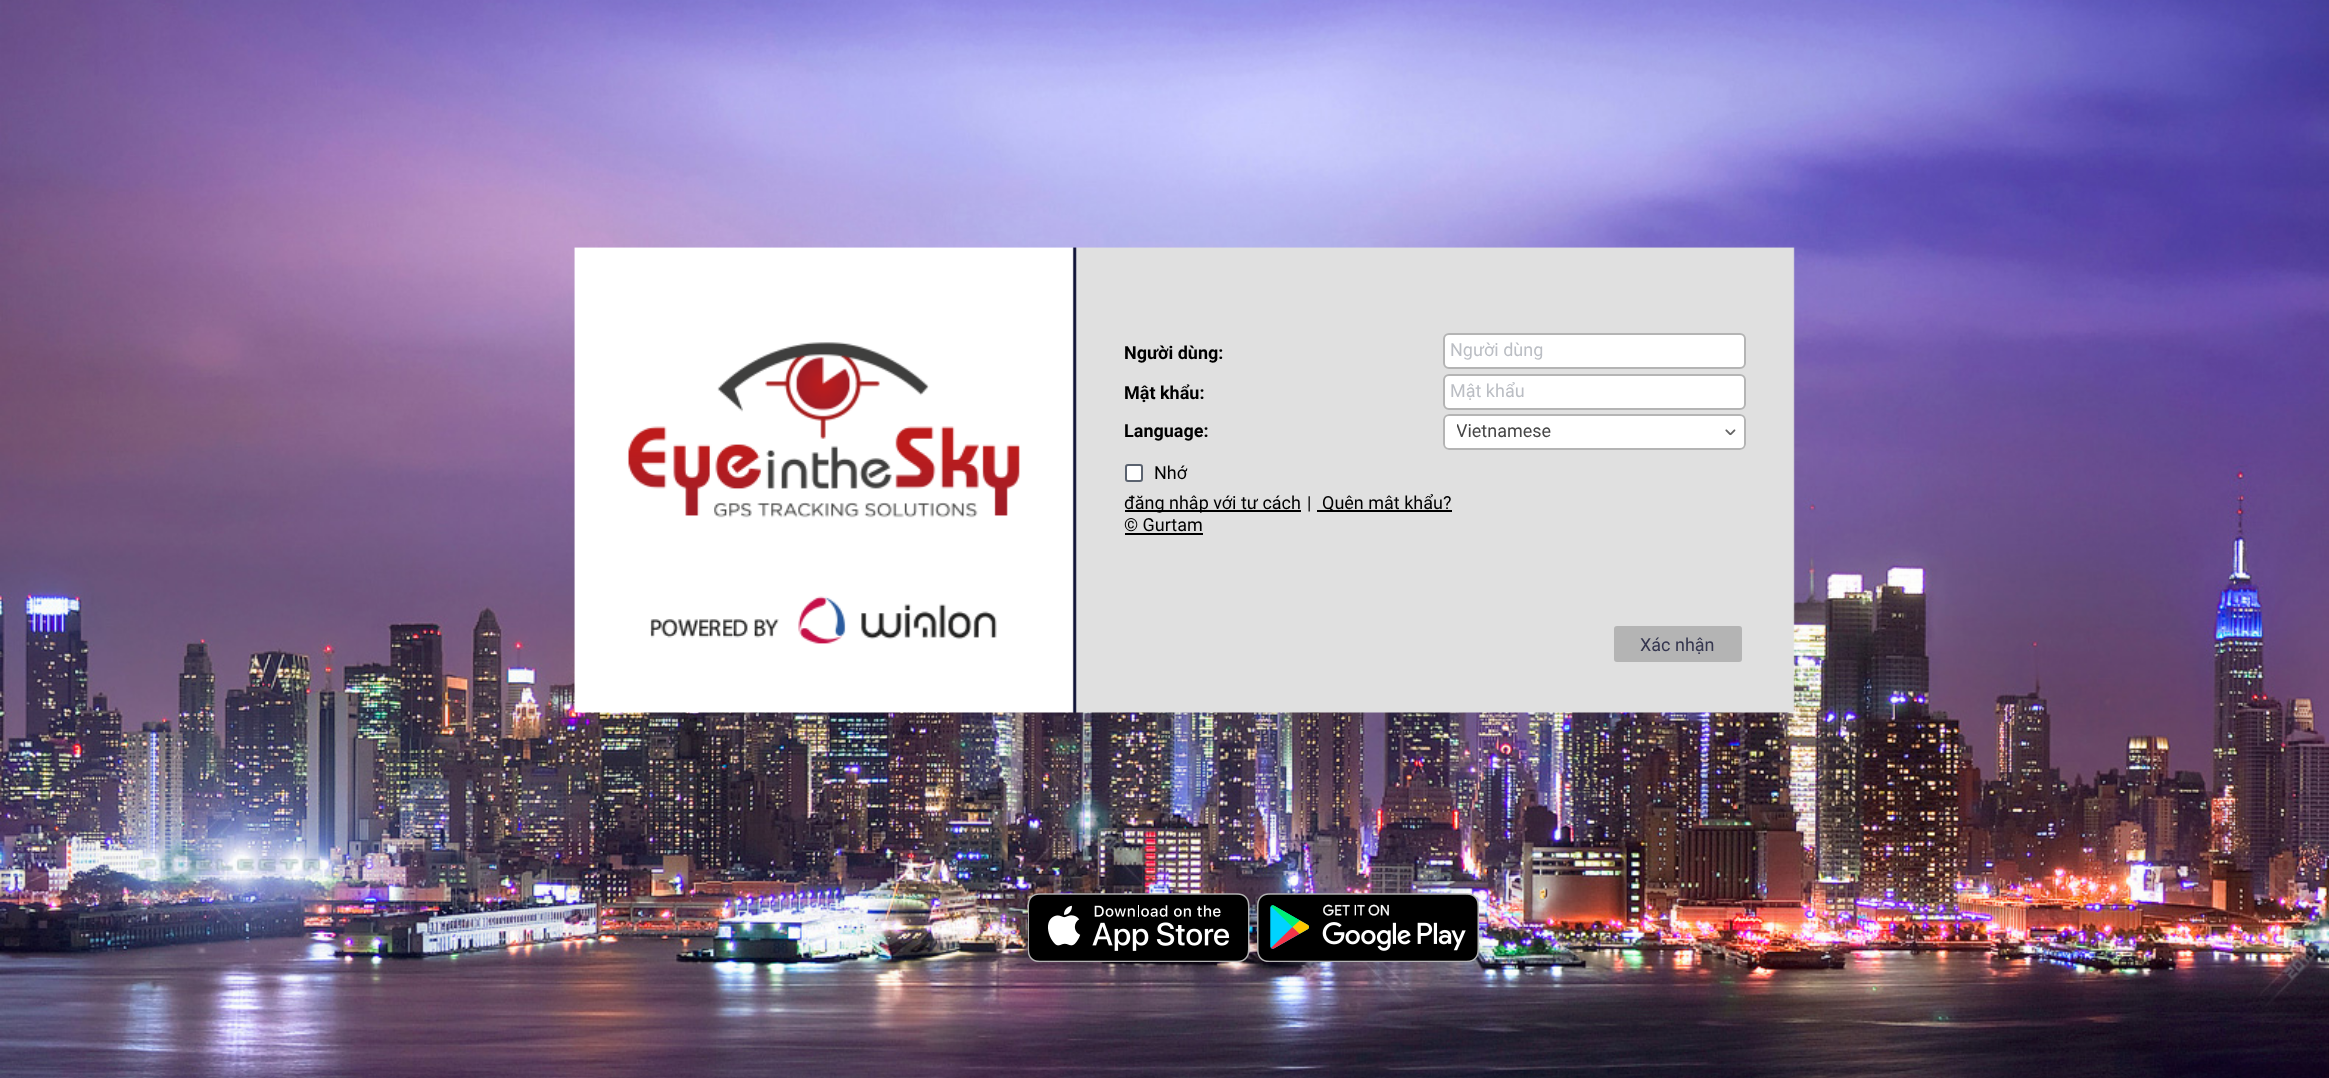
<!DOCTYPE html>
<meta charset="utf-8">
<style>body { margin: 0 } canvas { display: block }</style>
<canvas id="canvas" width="2329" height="1078"></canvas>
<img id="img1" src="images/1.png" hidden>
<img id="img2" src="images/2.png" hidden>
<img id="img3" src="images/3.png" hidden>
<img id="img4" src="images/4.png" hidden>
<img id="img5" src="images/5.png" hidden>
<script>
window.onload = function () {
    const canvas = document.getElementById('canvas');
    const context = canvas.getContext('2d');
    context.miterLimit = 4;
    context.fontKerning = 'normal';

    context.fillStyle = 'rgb(255, 255, 255)';
    context.fillRect(0, 0, 2329, 1078);
    context.drawImage(document.getElementById('img1'), 0, 0, 2329, 1078);
    context.drawImage(document.getElementById('img2'), 574, 247, 1221, 466);
    context.beginPath();
    context.roundRect(1444, 334, 301, 34, 5);
    context.fill();
    context.strokeStyle = 'rgb(180, 180, 180)';
    context.lineWidth = 2;
    context.stroke();
    context.beginPath();
    context.roundRect(1444, 375, 301, 34, 5);
    context.fill();
    context.stroke();
    context.beginPath();
    context.roundRect(1443, 414, 303, 36, 6);
    context.fill();
    context.drawImage(document.getElementById('img3'), 1725, 429, 11, 7);
    context.beginPath();
    context.roundRect(1444, 415, 301, 34, 5);
    context.stroke();
    context.beginPath();
    context.roundRect(1126, 465, 16, 16, 2);
    context.fill();
    context.strokeStyle = 'rgb(90, 98, 111)';
    context.stroke();
    context.fillStyle = 'rgb(0, 0, 0)';
    context.fillRect(1125, 510, 176, 2);
    context.fillRect(1317, 510, 135, 2);
    context.fillRect(1125, 533, 78, 2);
    context.fillStyle = 'rgb(180, 180, 180)';
    context.beginPath();
    context.roundRect(1615, 627, 126, 34, 2);
    context.fill();
    context.strokeStyle = 'rgb(180, 180, 180)';
    context.stroke();
    context.drawImage(document.getElementById('img4'), 1028, 893, 222, 69);
    context.drawImage(document.getElementById('img5'), 1257, 893, 222, 69);
    context.font = 'bold 18px Roboto';
    context.fillStyle = 'rgb(0, 0, 0)';
    context.fillText('Người dùng:', 1124, 359);
    context.font = '18px Roboto';
    context.fillStyle = 'rgb(187, 190, 196)';
    context.fillText('Người dùng', 1450, 356);
    context.font = 'bold 18px Roboto';
    context.fillStyle = 'rgb(0, 0, 0)';
    context.fillText('Mật khẩu:', 1124, 399);
    context.font = '18px Roboto';
    context.fillStyle = 'rgb(187, 190, 196)';
    context.fillText('Mật khẩu', 1450, 397);
    context.font = 'bold 18px Roboto';
    context.fillStyle = 'rgb(0, 0, 0)';
    context.fillText('Language:', 1124, 437);
    context.save();
    context.beginPath();
    context.rect(1457, 416, 250, 33);
    context.clip();
    context.font = '18px Roboto';
    context.fillStyle = 'rgb(70, 70, 70)';
    context.fillText('Vietnamese', 1456, 437);
    context.restore();
    context.font = '18px Roboto';
    context.fillText('Nhớ', 1154, 479);
    context.fillText('đăng nhập với tư cách', 1124, 509);
    context.fillText('|', 1307, 509);
    context.fillText('Quên mật khẩu?', 1322, 509);
    context.fillText('© Gurtam', 1124, 531);
    context.fillStyle = 'rgb(53, 54, 79)';
    context.fillText('Xác nhận', 1640, 651);
};
</script>
